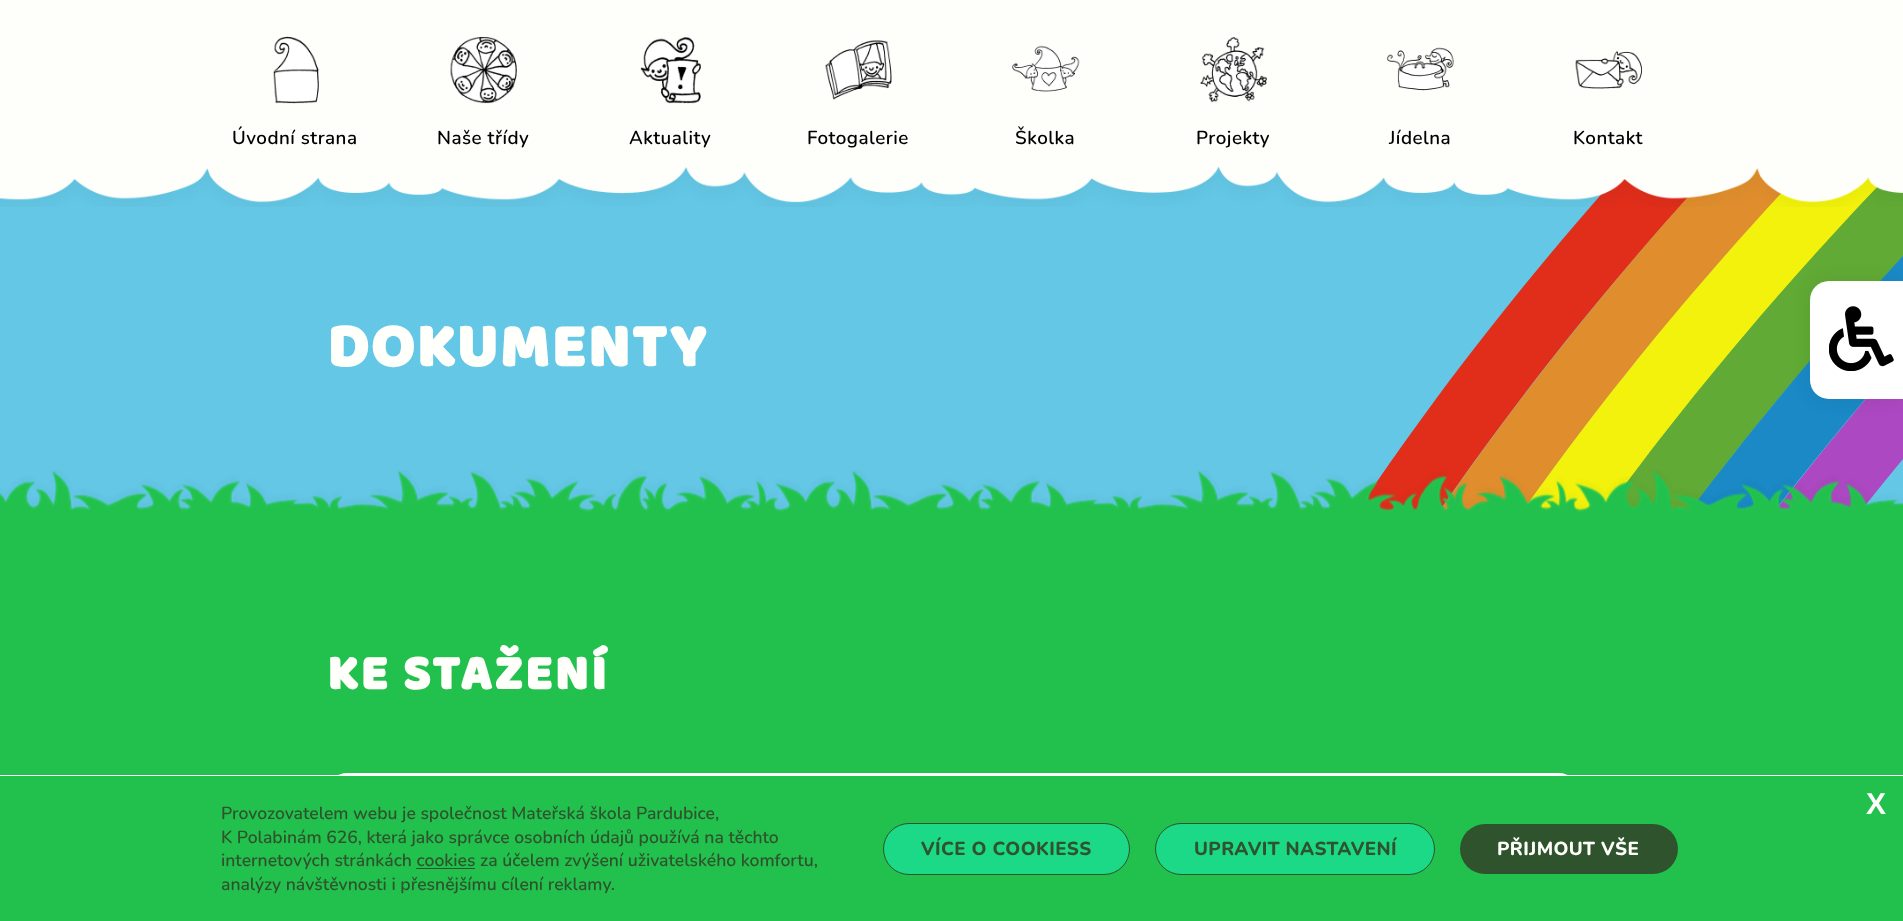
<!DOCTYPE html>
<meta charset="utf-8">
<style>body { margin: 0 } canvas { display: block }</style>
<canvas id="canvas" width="1903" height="921"></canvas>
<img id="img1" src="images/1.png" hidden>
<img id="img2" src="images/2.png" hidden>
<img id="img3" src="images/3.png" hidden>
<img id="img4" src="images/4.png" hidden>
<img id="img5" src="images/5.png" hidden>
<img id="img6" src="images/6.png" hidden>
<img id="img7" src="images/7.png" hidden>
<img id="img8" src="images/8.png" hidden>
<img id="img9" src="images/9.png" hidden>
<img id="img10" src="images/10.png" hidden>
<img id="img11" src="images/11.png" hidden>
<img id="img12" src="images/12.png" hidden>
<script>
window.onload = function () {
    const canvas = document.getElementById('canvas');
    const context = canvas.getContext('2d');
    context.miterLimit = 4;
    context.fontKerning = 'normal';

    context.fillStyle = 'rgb(255, 255, 255)';
    context.fillRect(0, 0, 1903, 921);
    context.drawImage(document.getElementById('img1'), 0, 166, 1903, 346);
    context.drawImage(document.getElementById('img2'), 0, 0, 1903, 207);
    context.drawImage(document.getElementById('img3'), 273, 36, 46, 68);
    context.drawImage(document.getElementById('img4'), 450, 36, 67, 68);
    context.drawImage(document.getElementById('img5'), 640, 37, 61, 67);
    context.drawImage(document.getElementById('img6'), 825, 40, 67, 60);
    context.drawImage(document.getElementById('img7'), 1012, 45, 68, 47);
    context.drawImage(document.getElementById('img8'), 1200, 37, 67, 66);
    context.drawImage(document.getElementById('img9'), 1387, 47, 67, 44);
    context.drawImage(document.getElementById('img10'), 1575, 51, 68, 38);
    context.drawImage(document.getElementById('img11'), 0, 470, 1903, 46);
    context.fillStyle = 'rgba(0, 0, 0, 0.07)';
    context.filter = 'blur(9.5px)';
    context.beginPath();
    context.roundRect(1810, 281, 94, 118, 19);
    context.fill();
    context.filter = 'none';
    context.fillStyle = 'rgb(255, 255, 255)';
    context.beginPath();
    context.moveTo(1829, 281);
    context.lineTo(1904, 281);
    context.lineTo(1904, 399);
    context.lineTo(1829, 399);
    context.bezierCurveTo(1818.5, 399, 1810, 390.5, 1810, 380);
    context.lineTo(1810, 300);
    context.bezierCurveTo(1810, 289.5, 1818.5, 281, 1829, 281);
    context.closePath();
    context.fill();
    context.drawImage(document.getElementById('img12'), 1829, 306, 65, 65);
    context.fillStyle = 'rgb(34, 193, 78)';
    context.fillRect(0, 516, 1903, 259);
    context.fillStyle = 'rgb(255, 255, 251)';
    context.beginPath();
    context.roundRect(328, 773, 1250, 105, 19);
    context.fill();
    context.fillStyle = 'rgb(255, 255, 255)';
    context.fillRect(338, 775, 1230, 1);
    context.fillStyle = 'rgb(34, 193, 78)';
    context.fillRect(0, 776, 1903, 145);
    context.fillStyle = 'rgb(47, 83, 45)';
    context.fillRect(416, 868, 59, 1);
    context.fillStyle = 'rgb(28, 217, 135)';
    context.beginPath();
    context.roundRect(883.5, 823.5, 246, 51, 25.5);
    context.fill();
    context.strokeStyle = 'rgb(47, 83, 45)';
    context.stroke();
    context.beginPath();
    context.roundRect(1155.5, 823.5, 279, 51, 25.5);
    context.fill();
    context.stroke();
    context.fillStyle = 'rgb(47, 83, 45)';
    context.beginPath();
    context.roundRect(1460, 824, 218, 50, 25);
    context.fill();
    context.letterSpacing = '0.5px';
    context.font = '600 18.75px Nunito';
    context.fillStyle = 'rgb(0, 0, 0)';
    context.fillText('Úvodní strana', 232, 144);
    context.fillText('Naše třídy', 437, 144);
    context.fillText('Aktuality', 629, 144);
    context.fillText('Fotogalerie', 807, 144);
    context.fillText('Školka', 1015, 144);
    context.fillText('Projekty', 1196, 144);
    context.fillText('Jídelna', 1389, 144);
    context.fillText('Kontakt', 1573, 144);
    context.letterSpacing = '1.9px';
    context.font = 'bold 62.5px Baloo';
    context.fillStyle = 'rgb(255, 255, 251)';
    context.fillText('DOKUMENTY', 327, 366);
    context.letterSpacing = '2.5px';
    context.font = 'bold 50px Baloo';
    context.fillText('KE STAŽENÍ', 327, 689);
    context.letterSpacing = '0px';
    context.font = '600 17.5px Nunito';
    context.fillStyle = 'rgb(47, 83, 45)';
    context.fillText('Provozovatelem webu je společnost Mateřská škola Pardubice,', 221, 819);
    context.fillText('K Polabinám 626, která jako správce osobních údajů používá na těchto', 221, 843);
    context.fillText('internetových stránkách cookies za účelem zvýšení uživatelského komfortu,', 221, 866);
    context.fillText('analýzy návštěvnosti i přesnějšímu cílení reklamy.', 221, 890);
    context.letterSpacing = '0.4px';
    context.font = '800 18.75px Nunito';
    context.fillText('VÍCE O COOKIESS', 921, 855);
    context.fillText('UPRAVIT NASTAVENÍ', 1194, 855);
    context.fillStyle = 'rgb(255, 255, 251)';
    context.fillText('PŘIJMOUT VŠE', 1497, 855);
    context.letterSpacing = '0px';
    context.font = 'bold 30px Liberation Sans';
    context.fillText('X', 1866, 814);
};
</script>
